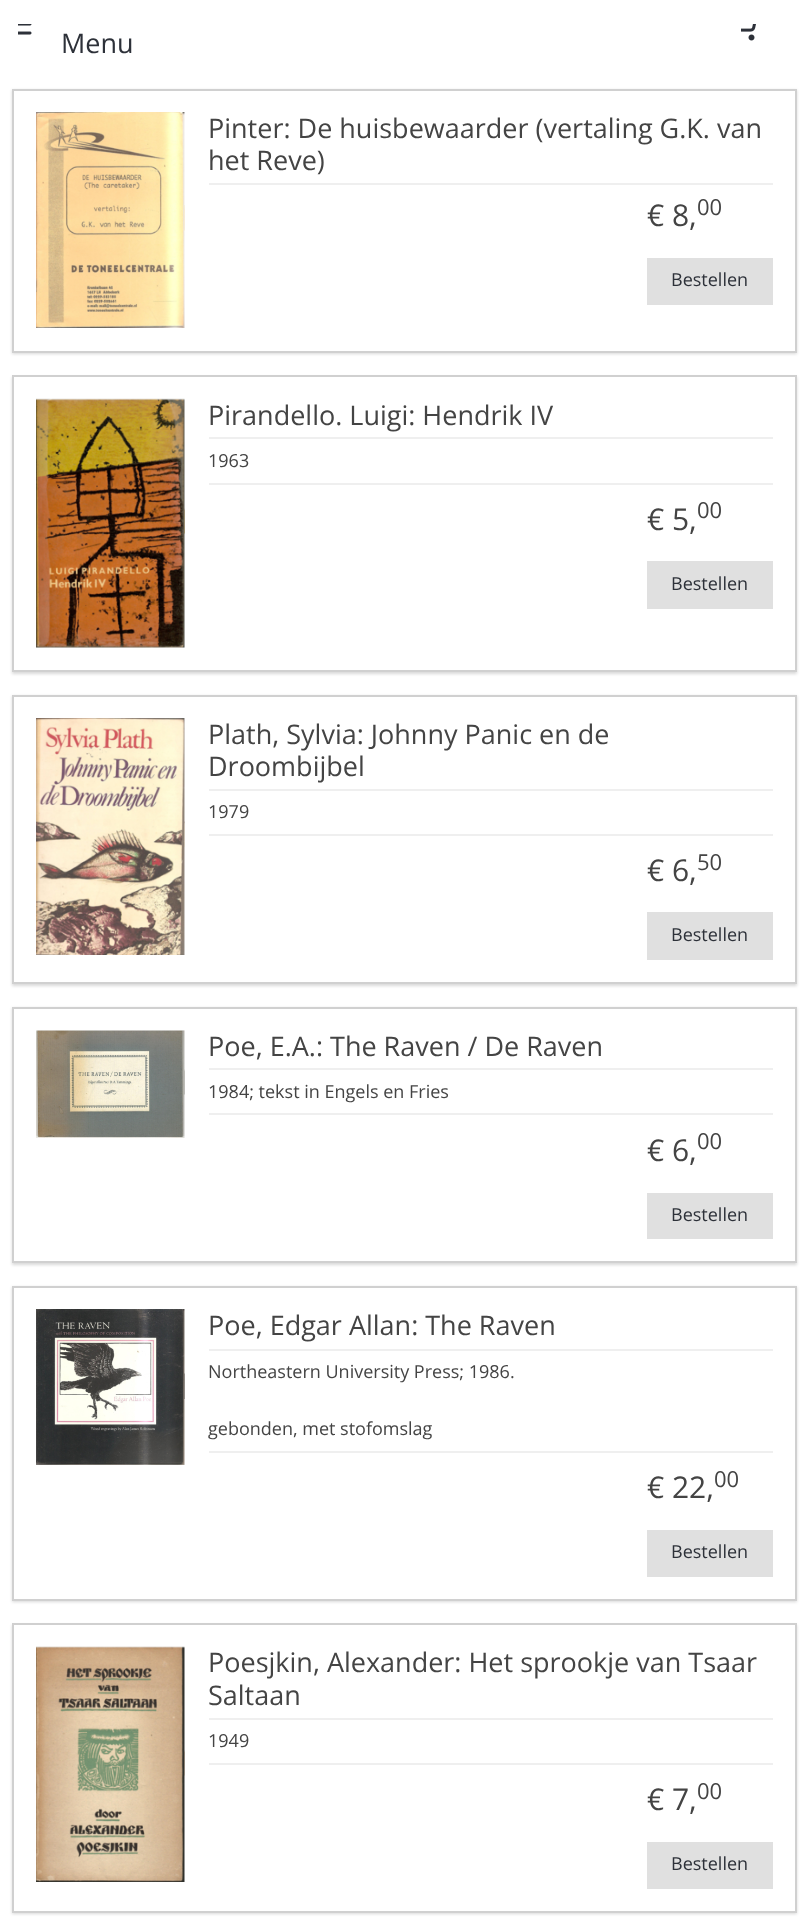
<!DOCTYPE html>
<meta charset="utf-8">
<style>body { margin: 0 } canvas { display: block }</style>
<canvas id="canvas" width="806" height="1929"></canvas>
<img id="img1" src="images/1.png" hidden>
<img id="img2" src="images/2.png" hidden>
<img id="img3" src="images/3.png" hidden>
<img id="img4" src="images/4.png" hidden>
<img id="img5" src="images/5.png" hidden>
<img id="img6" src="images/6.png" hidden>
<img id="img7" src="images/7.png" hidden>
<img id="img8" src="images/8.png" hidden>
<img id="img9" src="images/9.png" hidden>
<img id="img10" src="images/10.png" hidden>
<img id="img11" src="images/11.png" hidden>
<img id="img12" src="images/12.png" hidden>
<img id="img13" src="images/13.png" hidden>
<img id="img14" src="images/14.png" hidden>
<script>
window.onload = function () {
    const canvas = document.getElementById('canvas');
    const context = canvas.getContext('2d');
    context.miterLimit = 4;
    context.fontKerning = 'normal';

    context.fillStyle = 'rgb(255, 255, 255)';
    context.fillRect(0, 0, 806, 1929);
    context.drawImage(document.getElementById('img1'), 18, 24, 14, 11);
    context.drawImage(document.getElementById('img2'), 741, 24, 15, 17);
    context.save();
    context.beginPath();
    context.moveTo(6, 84);
    context.lineTo(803, 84);
    context.lineTo(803, 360);
    context.lineTo(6, 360);
    context.closePath();
    context.moveTo(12, 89);
    context.lineTo(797, 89);
    context.lineTo(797, 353);
    context.lineTo(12, 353);
    context.closePath();
    context.clip('evenodd');
    context.fillStyle = 'rgba(0, 0, 0, 0.15)';
    context.filter = 'blur(1.5px)';
    context.beginPath();
    context.rect(12, 90, 785, 264);
    context.fill();
    context.filter = 'none';
    context.restore();
    context.strokeStyle = 'rgb(208, 208, 208)';
    context.lineWidth = 2;
    context.strokeRect(13, 90, 783, 262);
    context.drawImage(document.getElementById('img3'), 184, 205, 1, 26);
    context.drawImage(document.getElementById('img4'), 36, 112, 149, 216);
    context.fillStyle = 'rgb(239, 239, 239)';
    context.fillRect(209, 183, 564, 2);
    context.fillStyle = 'rgb(224, 224, 224)';
    context.fillRect(647, 258, 126, 47);
    context.save();
    context.beginPath();
    context.moveTo(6, 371);
    context.lineTo(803, 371);
    context.lineTo(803, 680);
    context.lineTo(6, 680);
    context.closePath();
    context.moveTo(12, 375);
    context.lineTo(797, 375);
    context.lineTo(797, 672);
    context.lineTo(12, 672);
    context.closePath();
    context.clip('evenodd');
    context.fillStyle = 'rgba(0, 0, 0, 0.15)';
    context.filter = 'blur(1.5px)';
    context.beginPath();
    context.rect(12, 377, 785, 297);
    context.fill();
    context.filter = 'none';
    context.restore();
    context.strokeRect(13, 376, 783, 295);
    context.drawImage(document.getElementById('img5'), 184, 508, 1, 26);
    context.drawImage(document.getElementById('img6'), 36, 398, 149, 250);
    context.fillStyle = 'rgb(239, 239, 239)';
    context.fillRect(209, 437, 564, 2);
    context.fillRect(209, 483, 564, 2);
    context.fillStyle = 'rgb(224, 224, 224)';
    context.fillRect(647, 561, 126, 48);
    context.save();
    context.beginPath();
    context.moveTo(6, 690);
    context.lineTo(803, 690);
    context.lineTo(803, 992);
    context.lineTo(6, 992);
    context.closePath();
    context.moveTo(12, 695);
    context.lineTo(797, 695);
    context.lineTo(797, 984);
    context.lineTo(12, 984);
    context.closePath();
    context.clip('evenodd');
    context.fillStyle = 'rgba(0, 0, 0, 0.15)';
    context.filter = 'blur(1.5px)';
    context.beginPath();
    context.rect(12, 696, 785, 290);
    context.fill();
    context.filter = 'none';
    context.restore();
    context.strokeRect(13, 696, 783, 287);
    context.drawImage(document.getElementById('img7'), 184, 821, 1, 26);
    context.drawImage(document.getElementById('img8'), 36, 718, 149, 237);
    context.fillStyle = 'rgb(239, 239, 239)';
    context.fillRect(209, 789, 564, 2);
    context.fillRect(209, 834, 564, 2);
    context.fillStyle = 'rgb(224, 224, 224)';
    context.fillRect(647, 912, 126, 48);
    context.save();
    context.beginPath();
    context.moveTo(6, 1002);
    context.lineTo(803, 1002);
    context.lineTo(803, 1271);
    context.lineTo(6, 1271);
    context.closePath();
    context.moveTo(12, 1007);
    context.lineTo(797, 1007);
    context.lineTo(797, 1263);
    context.lineTo(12, 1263);
    context.closePath();
    context.clip('evenodd');
    context.fillStyle = 'rgba(0, 0, 0, 0.15)';
    context.filter = 'blur(1.5px)';
    context.beginPath();
    context.rect(12, 1008, 785, 257);
    context.fill();
    context.filter = 'none';
    context.restore();
    context.strokeRect(13, 1008, 783, 254);
    context.drawImage(document.getElementById('img9'), 184, 1069, 1, 26);
    context.drawImage(document.getElementById('img10'), 36, 1030, 149, 108);
    context.fillStyle = 'rgb(239, 239, 239)';
    context.fillRect(209, 1068, 564, 2);
    context.fillRect(209, 1113, 564, 2);
    context.fillStyle = 'rgb(224, 224, 224)';
    context.fillRect(647, 1193, 126, 46);
    context.save();
    context.beginPath();
    context.moveTo(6, 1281);
    context.lineTo(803, 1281);
    context.lineTo(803, 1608);
    context.lineTo(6, 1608);
    context.closePath();
    context.moveTo(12, 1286);
    context.lineTo(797, 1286);
    context.lineTo(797, 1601);
    context.lineTo(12, 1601);
    context.closePath();
    context.clip('evenodd');
    context.fillStyle = 'rgba(0, 0, 0, 0.15)';
    context.filter = 'blur(1.5px)';
    context.beginPath();
    context.rect(12, 1287, 785, 315);
    context.fill();
    context.filter = 'none';
    context.restore();
    context.strokeRect(13, 1287, 783, 313);
    context.drawImage(document.getElementById('img11'), 184, 1373, 1, 26);
    context.drawImage(document.getElementById('img12'), 36, 1309, 149, 156);
    context.fillStyle = 'rgb(239, 239, 239)';
    context.fillRect(209, 1349, 564, 2);
    context.fillRect(209, 1451, 564, 2);
    context.fillStyle = 'rgb(224, 224, 224)';
    context.fillRect(647, 1530, 126, 47);
    context.save();
    context.beginPath();
    context.moveTo(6, 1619);
    context.lineTo(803, 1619);
    context.lineTo(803, 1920);
    context.lineTo(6, 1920);
    context.closePath();
    context.moveTo(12, 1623);
    context.lineTo(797, 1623);
    context.lineTo(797, 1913);
    context.lineTo(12, 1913);
    context.closePath();
    context.clip('evenodd');
    context.fillStyle = 'rgba(0, 0, 0, 0.15)';
    context.filter = 'blur(1.5px)';
    context.beginPath();
    context.rect(12, 1625, 785, 289);
    context.fill();
    context.filter = 'none';
    context.restore();
    context.strokeRect(13, 1624, 783, 288);
    context.drawImage(document.getElementById('img13'), 184, 1750, 1, 26);
    context.drawImage(document.getElementById('img14'), 36, 1646, 149, 236);
    context.fillStyle = 'rgb(239, 239, 239)';
    context.fillRect(209, 1718, 564, 2);
    context.fillRect(209, 1763, 564, 2);
    context.fillStyle = 'rgb(224, 224, 224)';
    context.fillRect(647, 1842, 126, 47);
    context.font = '27px Open Sans';
    context.fillStyle = 'rgb(45, 49, 57)';
    context.fillText('Menu', 61, 53);
    context.fillStyle = 'rgb(68, 68, 68)';
    context.fillText('Pinter: De huisbewaarder (vertaling G.K. van', 208, 138);
    context.fillText('het Reve)', 208, 170);
    context.font = '30px Open Sans';
    context.fillText('€ 8,', 647, 226);
    context.font = '22px Open Sans';
    context.fillText('00', 697, 215);
    context.font = '18px Open Sans';
    context.fillStyle = 'rgb(45, 49, 57)';
    context.fillText('Bestellen', 671, 286);
    context.font = '27px Open Sans';
    context.fillStyle = 'rgb(68, 68, 68)';
    context.fillText('Pirandello. Luigi: Hendrik IV', 208, 425);
    context.font = '18px Open Sans';
    context.fillText('1963', 208, 467);
    context.font = '30px Open Sans';
    context.fillText('€ 5,', 647, 530);
    context.font = '22px Open Sans';
    context.fillText('00', 697, 518);
    context.font = '18px Open Sans';
    context.fillStyle = 'rgb(45, 49, 57)';
    context.fillText('Bestellen', 671, 590);
    context.font = '27px Open Sans';
    context.fillStyle = 'rgb(68, 68, 68)';
    context.fillText('Plath, Sylvia: Johnny Panic en de', 208, 744);
    context.fillText('Droombijbel', 208, 776);
    context.font = '18px Open Sans';
    context.fillText('1979', 208, 818);
    context.font = '30px Open Sans';
    context.fillText('€ 6,', 647, 881);
    context.font = '22px Open Sans';
    context.fillText('50', 697, 870);
    context.font = '18px Open Sans';
    context.fillStyle = 'rgb(45, 49, 57)';
    context.fillText('Bestellen', 671, 941);
    context.font = '27px Open Sans';
    context.fillStyle = 'rgb(68, 68, 68)';
    context.fillText('Poe, E.A.: The Raven / De Raven', 208, 1056);
    context.font = '18px Open Sans';
    context.fillText('1984; tekst in Engels en Fries', 208, 1098);
    context.font = '30px Open Sans';
    context.fillText('€ 6,', 647, 1161);
    context.font = '22px Open Sans';
    context.fillText('00', 697, 1149);
    context.font = '18px Open Sans';
    context.fillStyle = 'rgb(45, 49, 57)';
    context.fillText('Bestellen', 671, 1221);
    context.font = '27px Open Sans';
    context.fillStyle = 'rgb(68, 68, 68)';
    context.fillText('Poe, Edgar Allan: The Raven', 208, 1335);
    context.font = '18px Open Sans';
    context.fillText('Northeastern University Press; 1986.', 208, 1378);
    context.fillText('gebonden, met stofomslag', 208, 1435);
    context.font = '30px Open Sans';
    context.fillText('€ 22,', 647, 1498);
    context.font = '22px Open Sans';
    context.fillText('00', 714, 1487);
    context.font = '18px Open Sans';
    context.fillStyle = 'rgb(45, 49, 57)';
    context.fillText('Bestellen', 671, 1558);
    context.font = '27px Open Sans';
    context.fillStyle = 'rgb(68, 68, 68)';
    context.fillText('Poesjkin, Alexander: Het sprookje van Tsaar', 208, 1672);
    context.fillText('Saltaan', 208, 1705);
    context.font = '18px Open Sans';
    context.fillText('1949', 208, 1747);
    context.font = '30px Open Sans';
    context.fillText('€ 7,', 647, 1810);
    context.font = '22px Open Sans';
    context.fillText('00', 697, 1799);
    context.font = '18px Open Sans';
    context.fillStyle = 'rgb(45, 49, 57)';
    context.fillText('Bestellen', 671, 1870);
};
</script>
